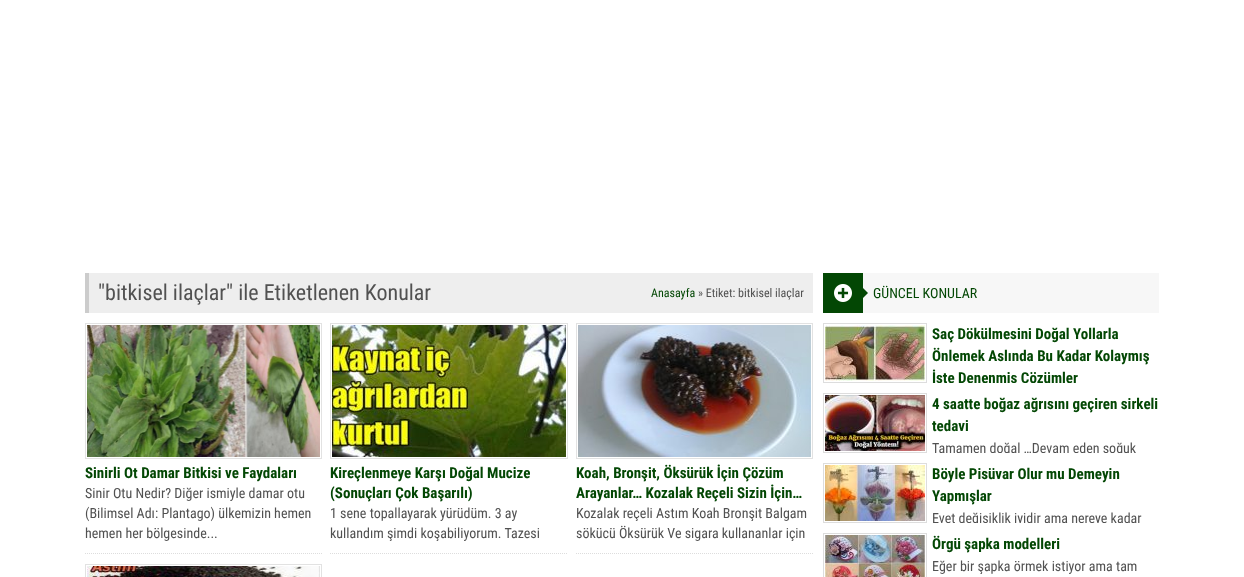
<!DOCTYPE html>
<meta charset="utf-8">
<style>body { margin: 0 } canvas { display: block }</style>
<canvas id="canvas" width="1244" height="577"></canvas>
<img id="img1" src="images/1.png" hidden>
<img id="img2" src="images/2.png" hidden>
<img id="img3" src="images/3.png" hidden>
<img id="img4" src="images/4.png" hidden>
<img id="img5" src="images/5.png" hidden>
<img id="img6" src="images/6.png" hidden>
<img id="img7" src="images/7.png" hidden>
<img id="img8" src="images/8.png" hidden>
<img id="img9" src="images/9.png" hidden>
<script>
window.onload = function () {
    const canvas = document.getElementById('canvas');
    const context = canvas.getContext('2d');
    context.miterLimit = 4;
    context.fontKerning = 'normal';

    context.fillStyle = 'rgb(255, 255, 255)';
    context.fillRect(0, 0, 1244, 577);
    context.fillStyle = 'rgb(238, 238, 238)';
    context.fillRect(89, 273, 724, 40);
    context.fillStyle = 'rgb(204, 204, 204)';
    context.fillRect(85, 273, 4, 40);
    context.beginPath();
    context.moveTo(85, 553.5);
    context.lineTo(322, 553.5);
    context.strokeStyle = 'rgb(221, 221, 221)';
    context.setLineDash([1, 1]);
    context.stroke();
    context.strokeStyle = 'rgb(226, 226, 226)';
    context.setLineDash([]);
    context.strokeRect(85.5, 323.5, 236, 135);
    context.drawImage(document.getElementById('img1'), 87, 325, 233, 132);
    context.beginPath();
    context.moveTo(330, 553.5);
    context.lineTo(568, 553.5);
    context.strokeStyle = 'rgb(221, 221, 221)';
    context.setLineDash([1, 1]);
    context.stroke();
    context.strokeStyle = 'rgb(226, 226, 226)';
    context.setLineDash([]);
    context.strokeRect(330.5, 323.5, 237, 135);
    context.drawImage(document.getElementById('img2'), 332, 325, 234, 132);
    context.beginPath();
    context.moveTo(576, 553.5);
    context.lineTo(813, 553.5);
    context.strokeStyle = 'rgb(221, 221, 221)';
    context.setLineDash([1, 1]);
    context.stroke();
    context.strokeStyle = 'rgb(226, 226, 226)';
    context.setLineDash([]);
    context.strokeRect(576.5, 323.5, 236, 135);
    context.drawImage(document.getElementById('img3'), 578, 325, 233, 132);
    context.strokeRect(85.5, 564.5, 236, 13);
    context.drawImage(document.getElementById('img4'), 87, 566, 233, 11);
    context.fillStyle = 'rgb(247, 247, 247)';
    context.fillRect(863, 273, 296, 40);
    context.fillStyle = 'rgb(3, 71, 4)';
    context.fillRect(823, 273, 40, 40);
    context.drawImage(document.getElementById('img5'), 834, 284, 18, 18);
    context.beginPath();
    context.moveTo(863, 298);
    context.lineTo(863, 288);
    context.lineTo(868, 293);
    context.closePath();
    context.fill();
    context.strokeStyle = 'rgb(221, 221, 221)';
    context.strokeRect(823.5, 323.5, 103, 59);
    context.drawImage(document.getElementById('img6'), 825, 325, 100, 56);
    context.strokeRect(823.5, 393.5, 103, 59);
    context.drawImage(document.getElementById('img7'), 825, 395, 100, 56);
    context.strokeRect(823.5, 463.5, 103, 59);
    context.drawImage(document.getElementById('img8'), 825, 465, 100, 56);
    context.strokeRect(823.5, 533.5, 103, 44);
    context.drawImage(document.getElementById('img9'), 825, 535, 100, 42);
    context.font = '22px Roboto Condensed';
    context.fillStyle = 'rgb(81, 81, 81)';
    context.fillText('"bitkisel ilaçlar" ile Etiketlenen Konular', 98, 300);
    context.font = '12px Roboto Condensed';
    context.fillStyle = 'rgb(3, 71, 4)';
    context.fillText('Anasayfa', 651, 297);
    context.fillStyle = 'rgb(81, 81, 81)';
    context.fillText('» Etiket: bitkisel ilaçlar', 698, 297);
    context.font = 'bold 15px Roboto Condensed';
    context.fillStyle = 'rgb(3, 71, 4)';
    context.fillText('Sinirli Ot Damar Bitkisi ve Faydaları', 85, 478);
    context.font = '14px Roboto Condensed';
    context.fillStyle = 'rgb(81, 81, 81)';
    context.fillText('Sinir Otu Nedir? Diğer ismiyle damar otu', 85, 498);
    context.fillText('(Bilimsel Adı: Plantago) ülkemizin hemen', 85, 518);
    context.fillText('hemen her bölgesinde...', 85, 538);
    context.font = 'bold 15px Roboto Condensed';
    context.fillStyle = 'rgb(3, 71, 4)';
    context.fillText('Kireçlenmeye Karşı Doğal Mucize', 330, 478);
    context.fillText('(Sonuçları Çok Başarılı)', 330, 498);
    context.font = '14px Roboto Condensed';
    context.fillStyle = 'rgb(81, 81, 81)';
    context.fillText('1 sene topallayarak yürüdüm. 3 ay', 330, 518);
    context.fillText('kullandım şimdi koşabiliyorum. Tazesi', 330, 538);
    context.font = 'bold 15px Roboto Condensed';
    context.fillStyle = 'rgb(3, 71, 4)';
    context.fillText('Koah, Bronşit, Öksürük İçin Çözüm', 576, 478);
    context.fillText('Arayanlar… Kozalak Reçeli Sizin İçin…', 576, 498);
    context.font = '14px Roboto Condensed';
    context.fillStyle = 'rgb(81, 81, 81)';
    context.fillText('Kozalak reçeli Astım Koah Bronşit Balgam', 576, 518);
    context.fillText('sökücü Öksürük Ve sigara kullananlar için', 576, 538);
    context.fillStyle = 'rgb(3, 71, 4)';
    context.fillText('GÜNCEL KONULAR', 873, 298);
    context.font = 'bold 15px Roboto Condensed';
    context.fillText('Saç Dökülmesini Doğal Yollarla', 932, 339);
    context.fillText('Önlemek Aslında Bu Kadar Kolaymış', 932, 361);
    context.save();
    context.beginPath();
    context.rect(932, 323, 227, 60);
    context.clip();
    context.fillText('İşte Denenmiş Çözümler', 932, 383);
    context.restore();
    context.fillText('4 saatte boğaz ağrısını geçiren sirkeli', 932, 409);
    context.fillText('tedavi', 932, 431);
    context.save();
    context.beginPath();
    context.rect(932, 393, 227, 60);
    context.clip();
    context.font = '14px Roboto Condensed';
    context.fillStyle = 'rgb(81, 81, 81)';
    context.fillText('Tamamen doğal …Devam eden soğuk', 932, 453);
    context.restore();
    context.fillText('Böyle Pisüvar Olur mu Demeyin', 932, 479);
    context.fillText('Yapmışlar', 932, 501);
    context.save();
    context.beginPath();
    context.rect(932, 463, 227, 60);
    context.clip();
    context.font = '14px Roboto Condensed';
    context.fillStyle = 'rgb(81, 81, 81)';
    context.fillText('Evet değişiklik iyidir ama nereye kadar', 932, 523);
    context.restore();
    context.fillText('Örgü şapka modelleri', 932, 549);
    context.font = '14px Roboto Condensed';
    context.fillStyle = 'rgb(81, 81, 81)';
    context.fillText('Eğer bir şapka örmek istiyor ama tam', 932, 571);
};
</script>
